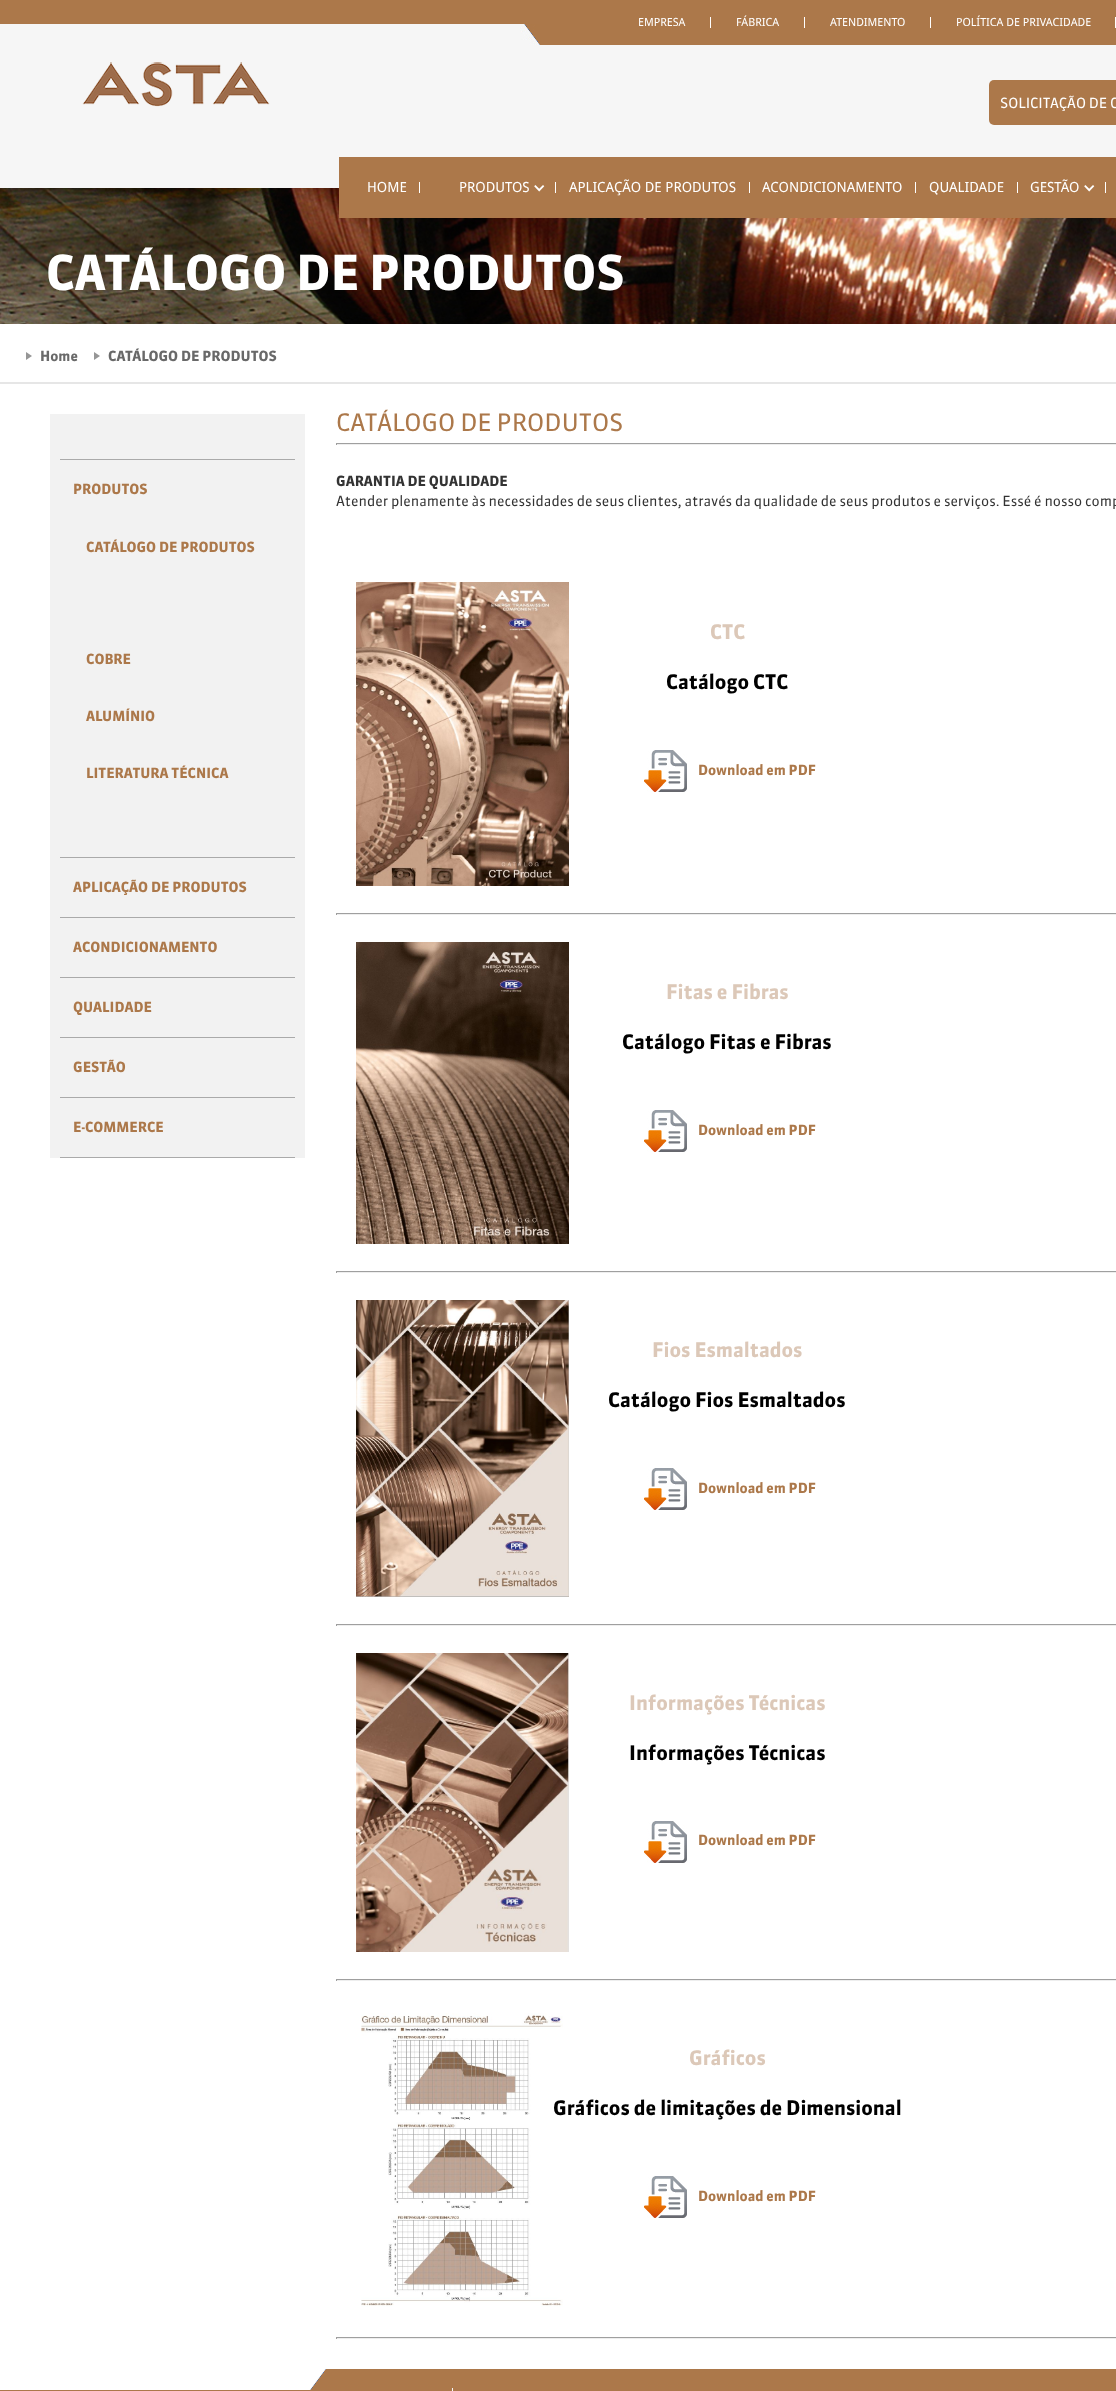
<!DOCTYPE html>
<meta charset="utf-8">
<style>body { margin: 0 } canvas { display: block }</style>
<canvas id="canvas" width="1116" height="2391"></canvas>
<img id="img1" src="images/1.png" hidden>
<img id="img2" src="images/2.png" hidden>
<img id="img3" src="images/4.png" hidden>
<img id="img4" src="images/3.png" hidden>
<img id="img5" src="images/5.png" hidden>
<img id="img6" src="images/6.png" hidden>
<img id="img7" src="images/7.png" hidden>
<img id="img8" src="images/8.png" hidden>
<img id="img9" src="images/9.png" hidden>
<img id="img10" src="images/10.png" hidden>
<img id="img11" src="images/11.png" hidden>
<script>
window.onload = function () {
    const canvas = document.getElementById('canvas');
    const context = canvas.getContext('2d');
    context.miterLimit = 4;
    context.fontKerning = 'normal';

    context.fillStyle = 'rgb(246, 246, 246)';
    context.fillRect(0, 0, 1116, 2391);
    context.fillStyle = 'rgb(172, 120, 74)';
    context.fillRect(0, 0, 1116, 45);
    context.drawImage(document.getElementById('img1'), 0, 24, 540, 21);
    context.fillStyle = 'rgb(255, 255, 255)';
    context.fillRect(710, 17, 1, 11);
    context.fillRect(804, 17, 1, 11);
    context.fillRect(930, 17, 1, 11);
    context.fillRect(1115, 17, 1, 11);
    context.drawImage(document.getElementById('img2'), 82, 62, 188, 45);
    context.fillStyle = 'rgb(172, 120, 74)';
    context.beginPath();
    context.roundRect(989, 80, 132, 45, 5);
    context.fill();
    context.drawImage(document.getElementById('img3'), 0, 188, 1116, 136);
    context.fillRect(339, 157, 777, 61);
    context.fillStyle = 'rgb(255, 255, 255)';
    context.fillRect(419, 182, 1, 11);
    context.fillRect(555, 182, 1, 11);
    context.drawImage(document.getElementById('img4'), 534, 185, 11, 7);
    context.fillRect(749, 182, 1, 11);
    context.fillRect(915, 182, 1, 11);
    context.fillRect(1017, 182, 1, 11);
    context.fillRect(1105, 182, 1, 11);
    context.drawImage(document.getElementById('img4'), 1084, 185, 11, 7);
    context.fillRect(0, 324, 1116, 58);
    context.fillStyle = 'rgb(230, 230, 230)';
    context.fillRect(0, 382, 1116, 2);
    context.fillStyle = 'rgb(150, 150, 150)';
    context.beginPath();
    context.moveTo(26, 360);
    context.lineTo(26, 352);
    context.lineTo(32, 356);
    context.closePath();
    context.fill();
    context.beginPath();
    context.moveTo(94, 360);
    context.lineTo(94, 352);
    context.lineTo(100, 356);
    context.closePath();
    context.fill();
    context.fillStyle = 'rgb(255, 255, 255)';
    context.fillRect(0, 384, 1116, 1985);
    context.fillStyle = 'rgb(242, 242, 242)';
    context.fillRect(50, 414, 255, 744);
    context.fillStyle = 'rgb(170, 170, 170)';
    context.fillRect(60, 459, 235, 1);
    context.fillRect(60, 857, 235, 1);
    context.fillRect(60, 917, 235, 1);
    context.fillRect(60, 977, 235, 1);
    context.fillRect(60, 1037, 235, 1);
    context.fillRect(60, 1097, 235, 1);
    context.fillRect(60, 1157, 235, 1);
    context.fillStyle = 'rgb(159, 159, 159)';
    context.fillRect(336, 443, 780, 1);
    context.fillStyle = 'rgb(238, 238, 238)';
    context.fillRect(336, 444, 780, 1);
    context.fillStyle = 'rgb(159, 159, 159)';
    context.fillRect(336, 443, 1, 2);
    context.drawImage(document.getElementById('img5'), 356, 582, 213, 304);
    context.drawImage(document.getElementById('img6'), 644, 750, 43, 42);
    context.fillRect(336, 913, 780, 1);
    context.fillStyle = 'rgb(238, 238, 238)';
    context.fillRect(336, 914, 780, 1);
    context.fillStyle = 'rgb(159, 159, 159)';
    context.fillRect(336, 913, 1, 2);
    context.drawImage(document.getElementById('img7'), 356, 942, 213, 302);
    context.drawImage(document.getElementById('img6'), 644, 1110, 43, 42);
    context.fillRect(336, 1271, 780, 1);
    context.fillStyle = 'rgb(238, 238, 238)';
    context.fillRect(336, 1272, 780, 1);
    context.fillStyle = 'rgb(159, 159, 159)';
    context.fillRect(336, 1271, 1, 2);
    context.drawImage(document.getElementById('img8'), 356, 1300, 213, 297);
    context.drawImage(document.getElementById('img6'), 644, 1468, 43, 42);
    context.fillRect(336, 1624, 780, 1);
    context.fillStyle = 'rgb(238, 238, 238)';
    context.fillRect(336, 1625, 780, 1);
    context.fillStyle = 'rgb(159, 159, 159)';
    context.fillRect(336, 1624, 1, 2);
    context.drawImage(document.getElementById('img9'), 356, 1653, 213, 299);
    context.drawImage(document.getElementById('img6'), 644, 1821, 43, 42);
    context.fillRect(336, 1979, 780, 1);
    context.fillStyle = 'rgb(238, 238, 238)';
    context.fillRect(336, 1980, 780, 1);
    context.fillStyle = 'rgb(159, 159, 159)';
    context.fillRect(336, 1979, 1, 2);
    context.drawImage(document.getElementById('img10'), 361, 2013, 202, 294);
    context.drawImage(document.getElementById('img6'), 644, 2176, 43, 42);
    context.fillRect(336, 2337, 780, 1);
    context.fillStyle = 'rgb(238, 238, 238)';
    context.fillRect(336, 2338, 780, 1);
    context.fillStyle = 'rgb(159, 159, 159)';
    context.fillRect(336, 2337, 1, 2);
    context.fillStyle = 'rgb(172, 120, 74)';
    context.fillRect(0, 2369, 1116, 22);
    context.drawImage(document.getElementById('img11'), 0, 2369, 326, 21);
    context.fillStyle = 'rgb(246, 246, 246)';
    context.fillRect(452, 2388, 1, 3);
    context.font = '11.25px Droid Sans';
    context.fillStyle = 'rgb(255, 255, 255)';
    context.fillText('EMPRESA', 638, 26);
    context.fillText('FÁBRICA', 736, 26);
    context.fillText('ATENDIMENTO', 830, 26);
    context.fillText('POLÍTICA DE PRIVACIDADE', 956, 26);
    context.font = '14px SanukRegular';
    context.fillText('SOLICITAÇÃO DE C', 1000, 108);
    context.font = '14px Droid Sans';
    context.fillText('HOME', 367, 192);
    context.fillText('PRODUTOS', 459, 192);
    context.fillText('APLICAÇÃO DE PRODUTOS', 569, 192);
    context.fillText('ACONDICIONAMENTO', 762, 192);
    context.fillText('QUALIDADE', 929, 192);
    context.fillText('GESTÃO', 1030, 192);
    context.font = 'bold 48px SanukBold';
    context.fillText('CATÁLOGO DE PRODUTOS', 46, 290);
    context.font = 'bold 14px SanukBold';
    context.fillStyle = 'rgb(105, 105, 105)';
    context.fillText('Home', 40, 361);
    context.fillText('CATÁLOGO DE PRODUTOS', 108, 361);
    context.fillStyle = 'rgb(172, 120, 74)';
    context.fillText('PRODUTOS', 73, 494);
    context.fillText('CATÁLOGO DE PRODUTOS', 86, 552);
    context.fillText('COBRE', 86, 664);
    context.fillText('ALUMÍNIO', 86, 721);
    context.fillText('LITERATURA TÉCNICA', 86, 778);
    context.fillText('APLICAÇÃO DE PRODUTOS', 73, 892);
    context.fillText('ACONDICIONAMENTO', 73, 952);
    context.fillText('QUALIDADE', 73, 1012);
    context.fillText('GESTÃO', 73, 1072);
    context.fillText('E-COMMERCE', 73, 1132);
    context.font = '24px SanukRegular';
    context.fillText('CATÁLOGO DE PRODUTOS', 336, 431);
    context.font = 'bold 14px SanukBold';
    context.fillStyle = 'rgb(51, 51, 51)';
    context.fillText('GARANTIA DE QUALIDADE', 336, 486);
    context.font = '14px SanukRegular';
    context.fillText('Atender plenamente às necessidades de seus clientes, através da qualidade de seus produtos e serviços. Essé é nosso comp', 336, 506);
    context.font = 'bold 20px SanukBold';
    context.fillStyle = 'rgb(220, 200, 184)';
    context.fillText('CTC', 710, 639);
    context.fillStyle = 'rgb(0, 0, 0)';
    context.fillText('Catálogo CTC', 666, 689);
    context.font = 'bold 14px SanukBold';
    context.fillStyle = 'rgb(172, 120, 74)';
    context.fillText('Download em PDF', 698, 775);
    context.font = 'bold 20px SanukBold';
    context.fillStyle = 'rgb(220, 200, 184)';
    context.fillText('Fitas e Fibras', 666, 999);
    context.fillStyle = 'rgb(0, 0, 0)';
    context.fillText('Catálogo Fitas e Fibras', 622, 1049);
    context.font = 'bold 14px SanukBold';
    context.fillStyle = 'rgb(172, 120, 74)';
    context.fillText('Download em PDF', 698, 1135);
    context.font = 'bold 20px SanukBold';
    context.fillStyle = 'rgb(220, 200, 184)';
    context.fillText('Fios Esmaltados', 652, 1357);
    context.fillStyle = 'rgb(0, 0, 0)';
    context.fillText('Catálogo Fios Esmaltados', 608, 1407);
    context.font = 'bold 14px SanukBold';
    context.fillStyle = 'rgb(172, 120, 74)';
    context.fillText('Download em PDF', 698, 1493);
    context.font = 'bold 20px SanukBold';
    context.fillStyle = 'rgb(220, 200, 184)';
    context.fillText('Informações Técnicas', 629, 1710);
    context.fillStyle = 'rgb(0, 0, 0)';
    context.fillText('Informações Técnicas', 629, 1760);
    context.font = 'bold 14px SanukBold';
    context.fillStyle = 'rgb(172, 120, 74)';
    context.fillText('Download em PDF', 698, 1845);
    context.font = 'bold 20px SanukBold';
    context.fillStyle = 'rgb(220, 200, 184)';
    context.fillText('Gráficos', 689, 2065);
    context.fillStyle = 'rgb(0, 0, 0)';
    context.fillText('Gráficos de limitações de Dimensional', 553, 2115);
    context.font = 'bold 14px SanukBold';
    context.fillStyle = 'rgb(172, 120, 74)';
    context.fillText('Download em PDF', 698, 2201);
};
</script>
